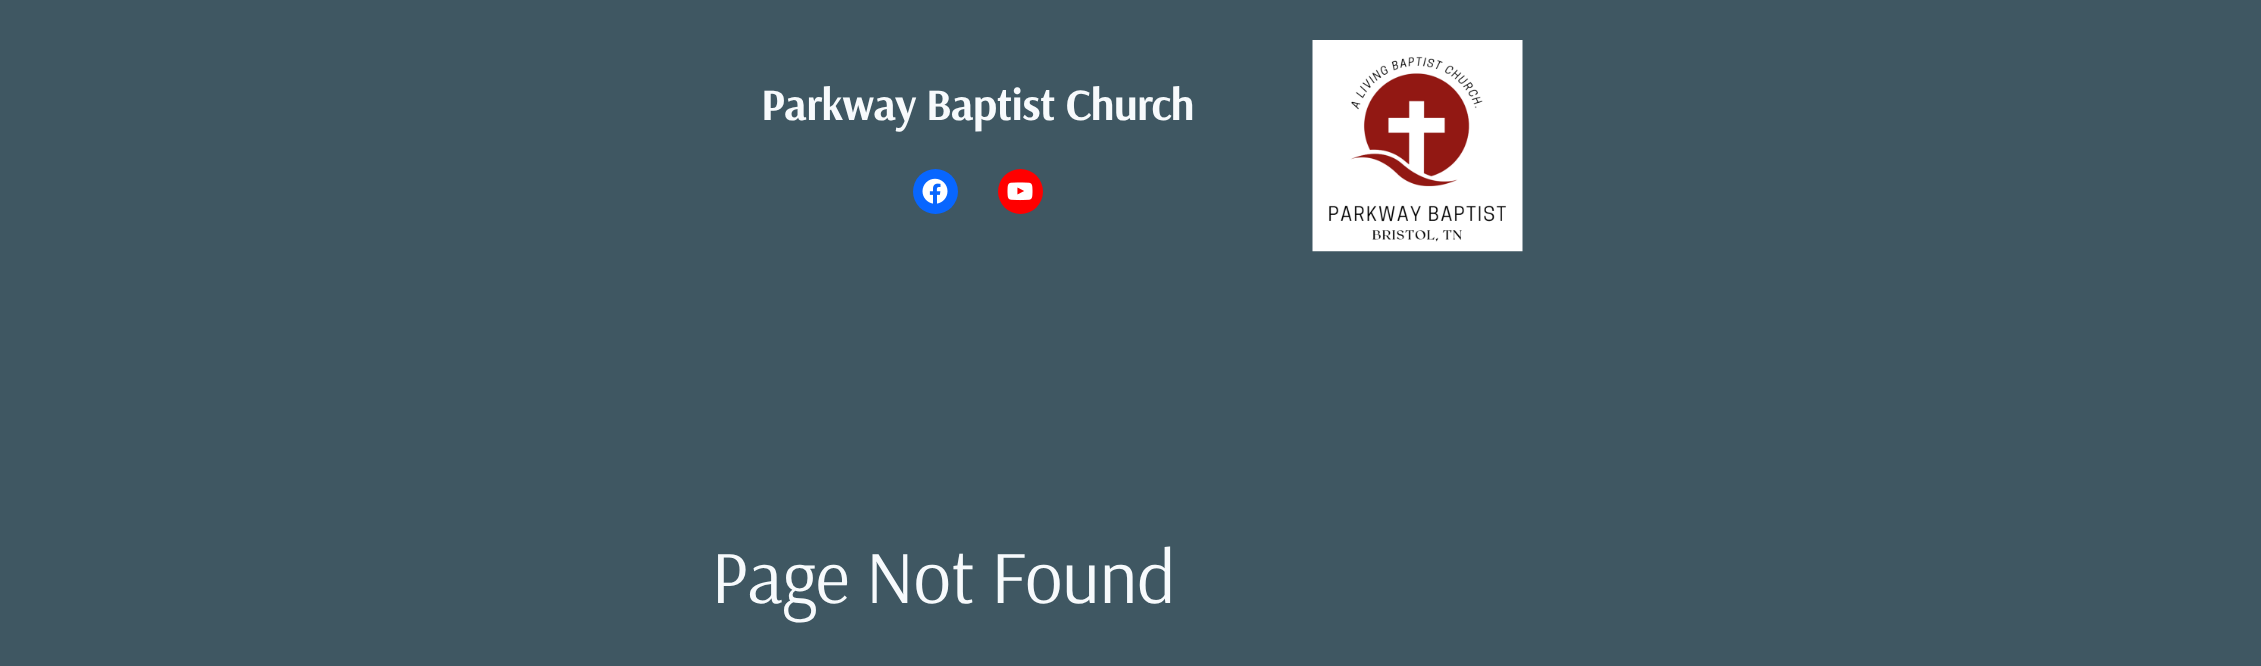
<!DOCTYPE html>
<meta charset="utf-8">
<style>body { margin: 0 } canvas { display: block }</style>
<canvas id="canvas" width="2261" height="666"></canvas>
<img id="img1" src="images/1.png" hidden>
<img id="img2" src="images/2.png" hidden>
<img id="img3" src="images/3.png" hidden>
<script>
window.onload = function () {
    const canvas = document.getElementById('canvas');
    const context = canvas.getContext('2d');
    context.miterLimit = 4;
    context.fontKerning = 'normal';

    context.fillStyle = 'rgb(63, 87, 98)';
    context.fillRect(0, 0, 2261, 666);
    context.fillStyle = 'rgb(8, 102, 255)';
    context.beginPath();
    context.arc(935.5, 191.5, 22.5, 0, 2 * Math.PI);
    context.fill();
    context.drawImage(document.getElementById('img1'), 922, 178, 26, 26);
    context.fillStyle = 'rgb(255, 0, 0)';
    context.beginPath();
    context.arc(1020.5, 191.5, 22.5, 0, 2 * Math.PI);
    context.fill();
    context.drawImage(document.getElementById('img2'), 1007, 182, 26, 19);
    context.drawImage(document.getElementById('img3'), 1312, 40, 211, 212);
    context.letterSpacing = '-0.9px';
    context.font = 'bold 45px Arsenal';
    context.fillStyle = 'rgb(247, 250, 252)';
    context.fillText('Parkway Baptist Church', 761, 120);
    context.letterSpacing = '-0.75px';
    context.font = '75px Arsenal';
    context.fillText('Page Not Found', 711, 603);
};
</script>
